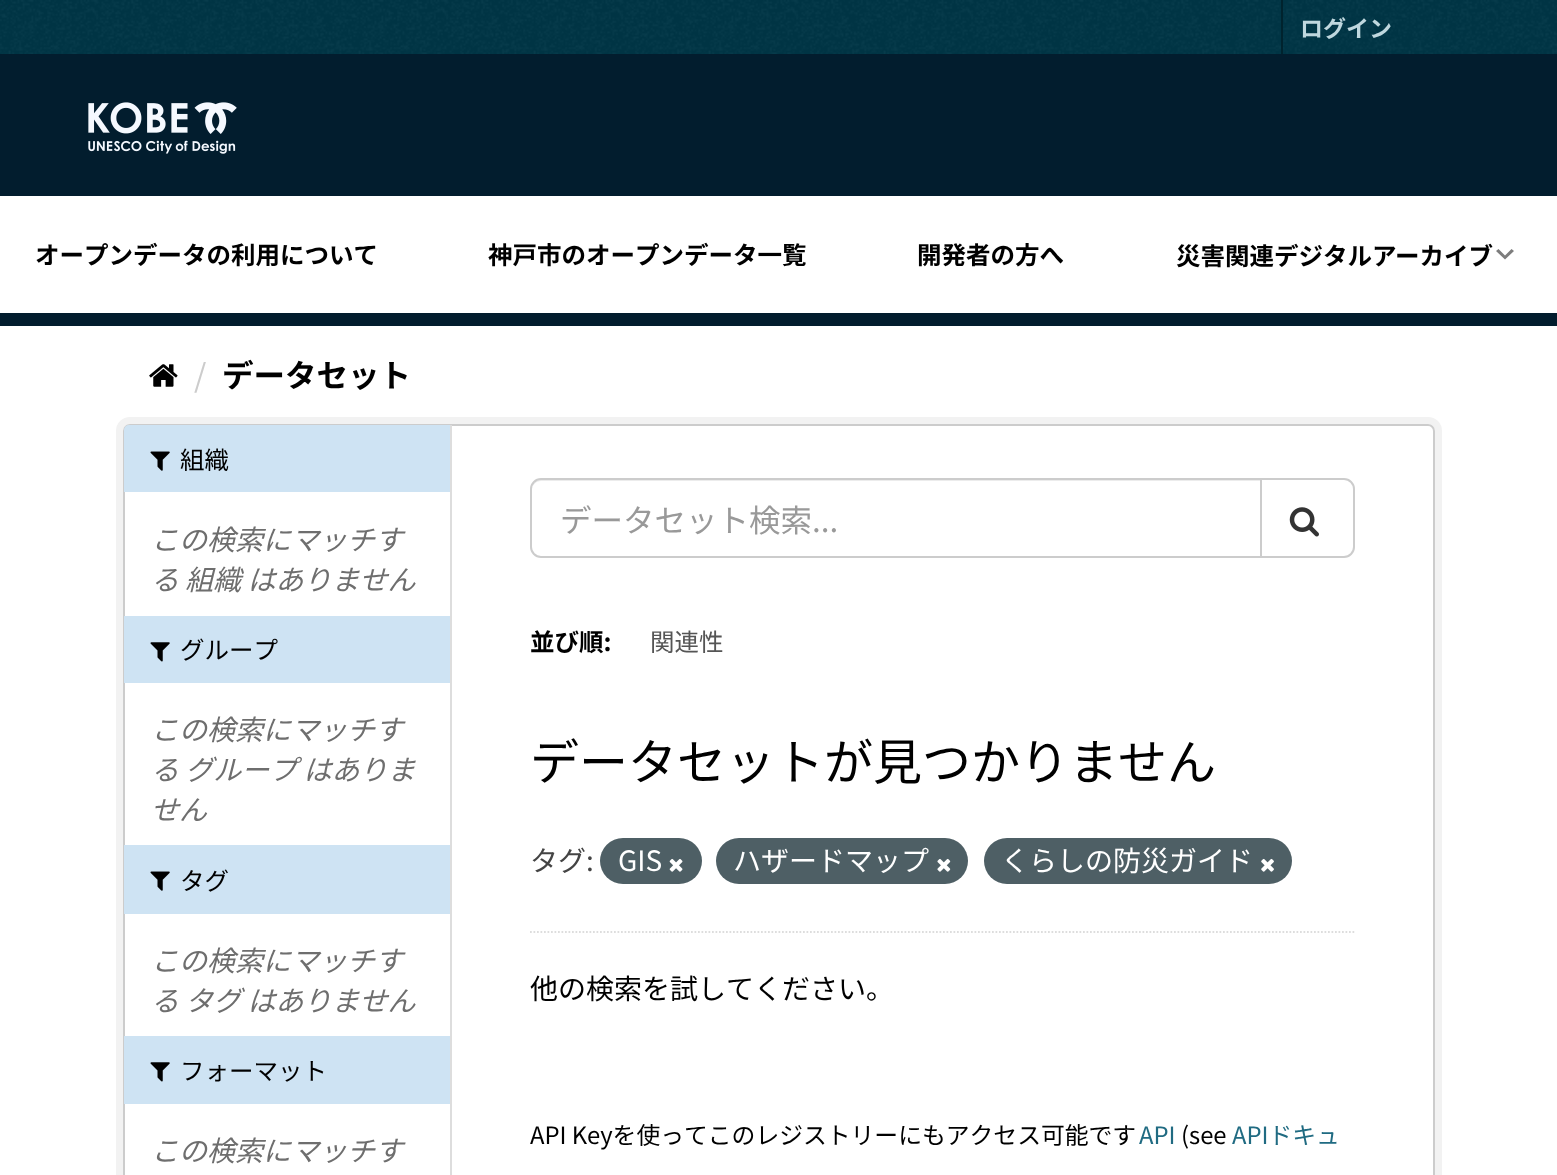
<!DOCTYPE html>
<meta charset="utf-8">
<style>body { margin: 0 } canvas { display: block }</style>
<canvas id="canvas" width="1557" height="1175"></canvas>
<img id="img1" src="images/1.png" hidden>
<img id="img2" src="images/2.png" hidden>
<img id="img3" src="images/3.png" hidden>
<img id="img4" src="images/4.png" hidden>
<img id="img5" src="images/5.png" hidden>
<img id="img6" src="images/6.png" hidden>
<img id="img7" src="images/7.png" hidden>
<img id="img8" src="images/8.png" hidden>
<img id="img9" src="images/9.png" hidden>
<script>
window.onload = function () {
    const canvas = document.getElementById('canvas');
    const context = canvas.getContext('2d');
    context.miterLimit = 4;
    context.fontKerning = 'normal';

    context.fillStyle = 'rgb(255, 255, 255)';
    context.fillRect(0, 0, 1557, 1175);
    context.fillStyle = 'rgb(0, 54, 71)';
    context.fillRect(0, 0, 1557, 54);
    context.drawImage(document.getElementById('img1'), 0, 0, 1557, 54);
    context.fillStyle = 'rgb(0, 35, 46)';
    context.fillRect(1281, 0, 2, 54);
    context.fillStyle = 'rgb(2, 29, 46)';
    context.fillRect(0, 313, 1557, 13);
    context.fillRect(0, 54, 1557, 142);
    context.drawImage(document.getElementById('img2'), 88, 102, 149, 52);
    context.fillStyle = 'rgb(125, 125, 125)';
    context.beginPath();
    context.moveTo(1498.5, 249);
    context.lineTo(1505, 255.5);
    context.lineTo(1511.5, 249);
    context.lineTo(1514, 251);
    context.lineTo(1505, 259.5);
    context.lineTo(1496, 251);
    context.closePath();
    context.fill();
    context.drawImage(document.getElementById('img3'), 149, 364, 29, 23);
    context.beginPath();
    context.roundRect(119.5, 420.5, 1319, 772, 10.5);
    context.strokeStyle = 'rgb(242, 242, 242)';
    context.lineWidth = 7;
    context.stroke();
    context.fillStyle = 'rgb(255, 255, 255)';
    context.beginPath();
    context.roundRect(124, 425, 1310, 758, 6);
    context.fill();
    context.strokeStyle = 'rgb(204, 204, 204)';
    context.lineWidth = 2;
    context.stroke();
    context.fillStyle = 'rgb(206, 227, 243)';
    context.beginPath();
    context.roundRect(124, 425, 326, 67, [5, 0, 0, 0]);
    context.fill();
    context.drawImage(document.getElementById('img4'), 150, 451, 20, 20);
    context.fillRect(124, 616, 326, 67);
    context.drawImage(document.getElementById('img5'), 150, 642, 20, 20);
    context.fillRect(124, 845, 326, 69);
    context.drawImage(document.getElementById('img4'), 150, 871, 20, 20);
    context.fillRect(124, 1036, 326, 68);
    context.drawImage(document.getElementById('img5'), 150, 1062, 20, 20);
    context.fillStyle = 'rgb(221, 221, 221)';
    context.fillRect(450, 425, 2, 750);
    context.beginPath();
    context.moveTo(530, 932);
    context.lineTo(1354.5, 932);
    context.strokeStyle = 'rgb(221, 221, 221)';
    context.lineWidth = 1.8;
    context.setLineDash([1.75, 1.75]);
    context.stroke();
    context.fillStyle = 'rgb(236, 236, 236)';
    context.beginPath();
    context.moveTo(541, 481);
    context.lineTo(1260, 481);
    context.lineTo(1260, 480);
    context.lineTo(541, 480);
    context.bezierCurveTo(536, 480, 532, 484, 532, 489);
    context.lineTo(532, 490);
    context.bezierCurveTo(532, 485, 536, 481, 541, 481);
    context.closePath();
    context.fill();
    context.beginPath();
    context.roundRect(531, 479, 730, 78, [10, 0, 0, 10]);
    context.strokeStyle = 'rgb(204, 204, 204)';
    context.lineWidth = 2;
    context.setLineDash([]);
    context.stroke();
    context.fillStyle = 'rgb(255, 255, 255)';
    context.beginPath();
    context.roundRect(1261, 479, 93, 78, [0, 10, 10, 0]);
    context.fill();
    context.stroke();
    context.drawImage(document.getElementById('img6'), 1289, 507, 30, 30);
    context.fillStyle = 'rgb(78, 95, 101)';
    context.beginPath();
    context.roundRect(600, 838, 102, 46, 23);
    context.fill();
    context.drawImage(document.getElementById('img7'), 669, 858, 14, 14);
    context.beginPath();
    context.roundRect(716, 838, 252, 46, 23);
    context.fill();
    context.drawImage(document.getElementById('img8'), 937, 858, 14, 14);
    context.beginPath();
    context.roundRect(984, 838, 308, 46, 23);
    context.fill();
    context.drawImage(document.getElementById('img9'), 1261, 858, 13, 14);
    context.font = 'bold 23px Noto Sans JP';
    context.fillStyle = 'rgb(191, 215, 222)';
    context.fillText('ログイン', 1300, 37);
    context.font = 'bold 24.5px Noto Sans JP';
    context.fillStyle = 'rgb(0, 0, 0)';
    context.fillText('オープンデータの利用について', 35, 264);
    context.fillText('神戸市のオープンデータ一覧', 488, 264);
    context.fillText('開発者の方へ', 917, 264);
    context.fillText('災害関連デジタルアーカイブ', 1176, 265);
    context.font = '31.5px Noto Sans JP';
    context.fillStyle = 'rgb(204, 204, 204)';
    context.fillText('/', 194, 387);
    context.font = 'bold 31.5px Noto Sans JP';
    context.fillStyle = 'rgb(0, 0, 0)';
    context.fillText('データセット', 222, 387);
    context.font = '24.5px Noto Sans JP';
    context.fillText('組織', 180, 469);
    context.font = 'italic 28px Noto Sans JP';
    context.fillStyle = 'rgb(110, 110, 110)';
    context.fillText('この検索にマッチす', 151, 550);
    context.fillText('る 組織 はありません', 151, 590);
    context.font = '24.5px Noto Sans JP';
    context.fillStyle = 'rgb(0, 0, 0)';
    context.fillText('グループ', 180, 659);
    context.font = 'italic 28px Noto Sans JP';
    context.fillStyle = 'rgb(110, 110, 110)';
    context.fillText('この検索にマッチす', 151, 740);
    context.fillText('る グループ はありま', 151, 780);
    context.fillText('せん', 151, 820);
    context.font = '24.5px Noto Sans JP';
    context.fillStyle = 'rgb(0, 0, 0)';
    context.fillText('タグ', 180, 890);
    context.font = 'italic 28px Noto Sans JP';
    context.fillStyle = 'rgb(110, 110, 110)';
    context.fillText('この検索にマッチす', 151, 971);
    context.fillText('る タグ はありません', 151, 1011);
    context.font = '24.5px Noto Sans JP';
    context.fillStyle = 'rgb(0, 0, 0)';
    context.fillText('フォーマット', 180, 1080);
    context.font = 'italic 28px Noto Sans JP';
    context.fillStyle = 'rgb(110, 110, 110)';
    context.fillText('この検索にマッチす', 151, 1161);
    context.font = '31.5px Noto Sans JP';
    context.fillStyle = 'rgb(153, 153, 153)';
    context.fillText('データセット検索...', 560, 532);
    context.font = 'bold 24.5px Noto Sans JP';
    context.fillStyle = 'rgb(0, 0, 0)';
    context.fillText('並び順:', 530, 651);
    context.font = '24.5px Noto Sans JP';
    context.fillStyle = 'rgb(85, 85, 85)';
    context.fillText('関連性', 650, 651);
    context.font = '49px Noto Sans JP';
    context.fillStyle = 'rgb(0, 0, 0)';
    context.fillText('データセットが見つかりません', 530, 780);
    context.font = '28px Noto Sans JP';
    context.fillStyle = 'rgb(68, 68, 68)';
    context.fillText('タグ:', 530, 871);
    context.fillStyle = 'rgb(255, 255, 255)';
    context.fillText('GIS', 618, 871);
    context.fillText('ハザードマップ', 733, 871);
    context.fillText('くらしの防災ガイド', 1001, 871);
    context.fillStyle = 'rgb(0, 0, 0)';
    context.fillText('他の検索を試してください。', 530, 999);
    context.font = '23.8px Noto Sans JP';
    context.fillText('API Keyを使ってこのレジストリーにもアクセス可能です', 530, 1144);
    context.fillStyle = 'rgb(32, 107, 130)';
    context.fillText('API', 1139, 1144);
    context.fillStyle = 'rgb(0, 0, 0)';
    context.fillText('(see', 1181, 1144);
    context.fillStyle = 'rgb(32, 107, 130)';
    context.fillText('APIドキュ', 1232, 1144);
};
</script>
